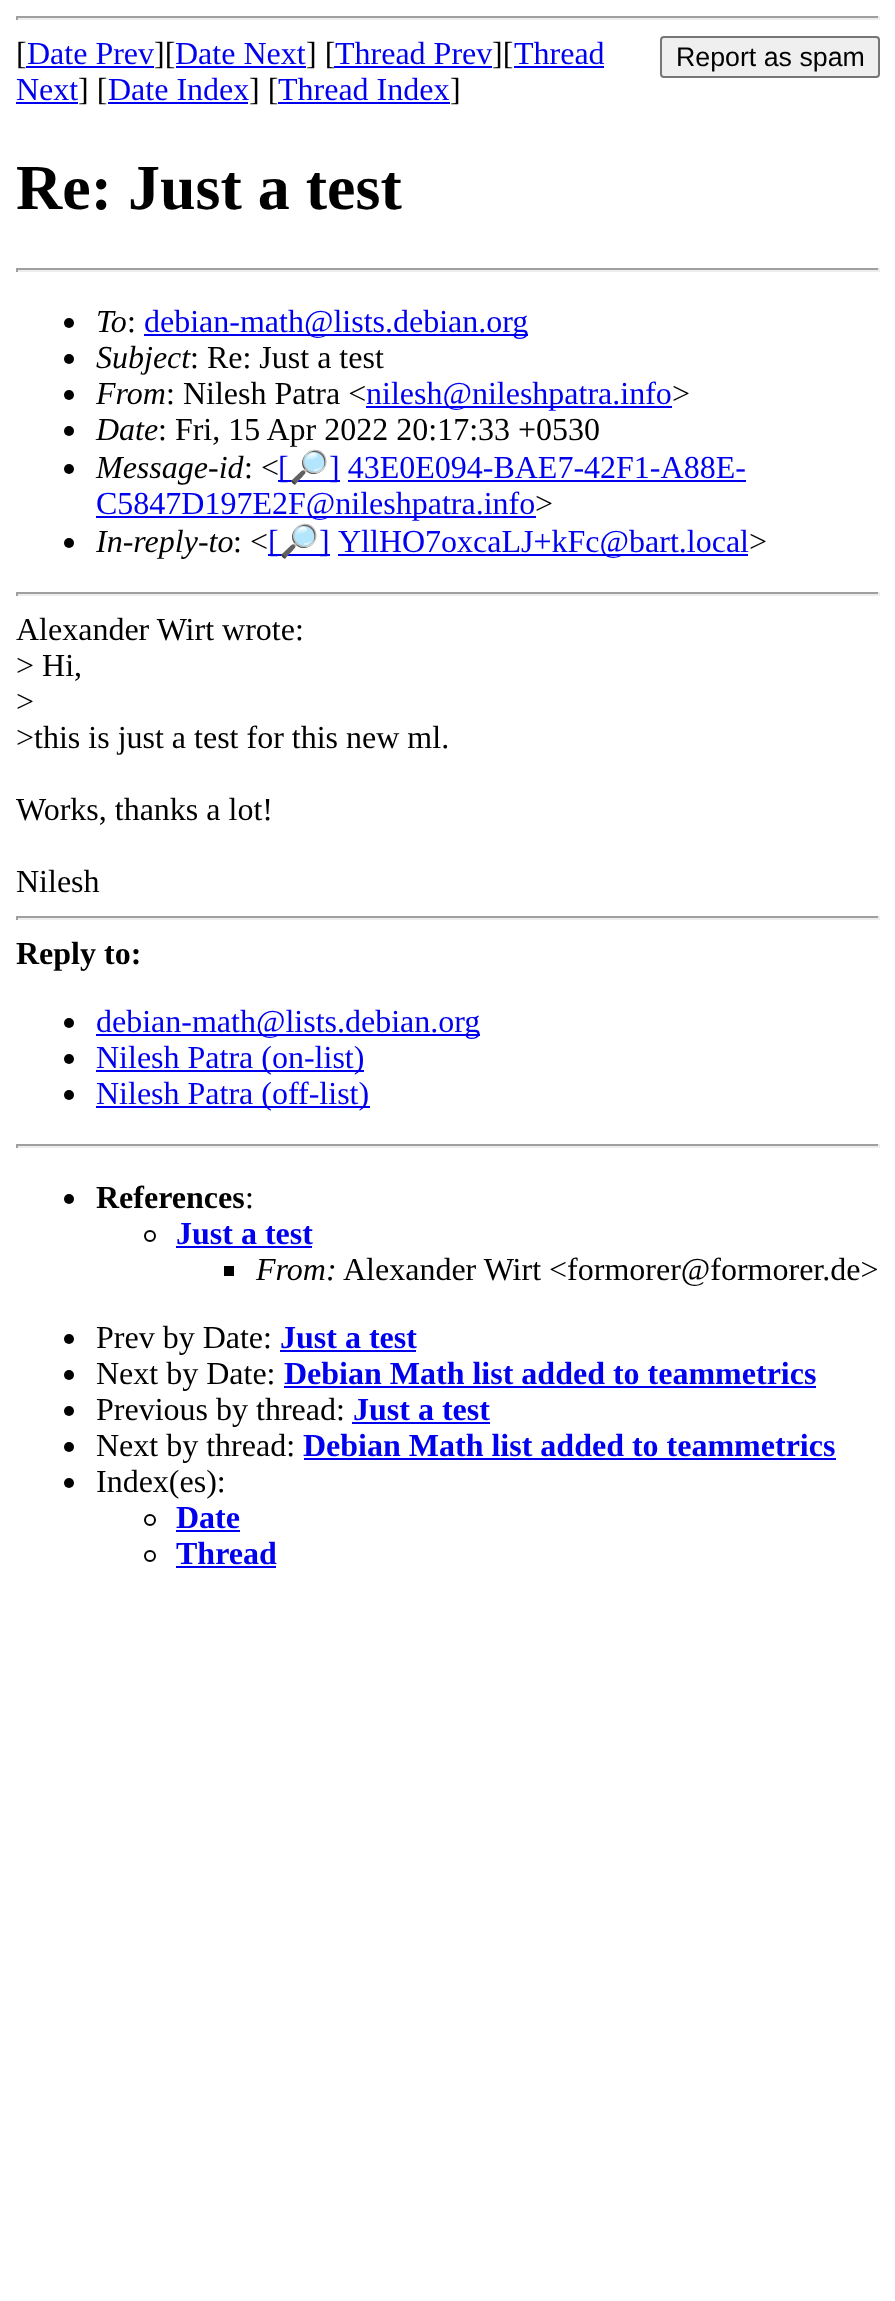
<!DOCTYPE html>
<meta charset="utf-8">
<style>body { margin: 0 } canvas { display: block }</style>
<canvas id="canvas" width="895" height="2301"></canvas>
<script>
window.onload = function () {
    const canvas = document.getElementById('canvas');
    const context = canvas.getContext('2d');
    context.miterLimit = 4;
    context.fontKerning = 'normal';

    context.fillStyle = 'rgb(255, 255, 255)';
    context.fillRect(0, 0, 895, 2301);
    context.fillStyle = 'rgb(159, 159, 159)';
    context.fillRect(16, 16, 864, 2);
    context.fillStyle = 'rgb(238, 238, 238)';
    context.fillRect(878, 16, 2, 4);
    context.fillRect(16, 18, 864, 2);
    context.fillStyle = 'rgb(159, 159, 159)';
    context.fillRect(16, 16, 2, 4);
    context.fillStyle = 'rgb(0, 0, 238)';
    context.fillRect(26, 66, 128, 2);
    context.fillRect(176, 66, 130, 2);
    context.fillRect(334, 66, 158, 2);
    context.fillRect(514, 66, 90, 2);
    context.fillStyle = 'rgb(239, 239, 239)';
    context.beginPath();
    context.roundRect(661, 37, 218, 40, 3);
    context.fill();
    context.strokeStyle = 'rgb(118, 118, 118)';
    context.lineWidth = 2;
    context.stroke();
    context.fillStyle = 'rgb(0, 0, 238)';
    context.fillRect(16, 102, 62, 2);
    context.fillRect(108, 102, 140, 2);
    context.fillRect(278, 102, 172, 2);
    context.fillStyle = 'rgb(159, 159, 159)';
    context.fillRect(16, 268, 864, 2);
    context.fillStyle = 'rgb(238, 238, 238)';
    context.fillRect(878, 268, 2, 4);
    context.fillRect(16, 270, 864, 2);
    context.fillStyle = 'rgb(159, 159, 159)';
    context.fillRect(16, 268, 2, 4);
    context.fillStyle = 'rgb(0, 0, 0)';
    context.beginPath();
    context.arc(69, 323, 5, 0, 2 * Math.PI);
    context.fill();
    context.fillStyle = 'rgb(0, 0, 238)';
    context.fillRect(144, 334, 384, 2);
    context.fillStyle = 'rgb(0, 0, 0)';
    context.beginPath();
    context.arc(69, 359, 5, 0, 2 * Math.PI);
    context.fill();
    context.beginPath();
    context.arc(69, 395, 5, 0, 2 * Math.PI);
    context.fill();
    context.fillStyle = 'rgb(0, 0, 238)';
    context.fillRect(366, 406, 306, 2);
    context.fillStyle = 'rgb(0, 0, 0)';
    context.beginPath();
    context.arc(69, 431, 5, 0, 2 * Math.PI);
    context.fill();
    context.beginPath();
    context.arc(69, 469, 5, 0, 2 * Math.PI);
    context.fill();
    context.fillStyle = 'rgb(0, 0, 238)';
    context.fillRect(278, 480, 62, 2);
    context.fillRect(348, 480, 398, 2);
    context.fillRect(96, 516, 440, 2);
    context.fillStyle = 'rgb(0, 0, 0)';
    context.beginPath();
    context.arc(69, 543, 5, 0, 2 * Math.PI);
    context.fill();
    context.fillStyle = 'rgb(0, 0, 238)';
    context.fillRect(268, 554, 62, 2);
    context.fillRect(338, 554, 410, 2);
    context.fillStyle = 'rgb(159, 159, 159)';
    context.fillRect(16, 592, 864, 2);
    context.fillStyle = 'rgb(238, 238, 238)';
    context.fillRect(878, 592, 2, 4);
    context.fillRect(16, 594, 864, 2);
    context.fillStyle = 'rgb(159, 159, 159)';
    context.fillRect(16, 592, 2, 4);
    context.fillRect(16, 916, 864, 2);
    context.fillStyle = 'rgb(238, 238, 238)';
    context.fillRect(878, 916, 2, 4);
    context.fillRect(16, 918, 864, 2);
    context.fillStyle = 'rgb(159, 159, 159)';
    context.fillRect(16, 916, 2, 4);
    context.fillStyle = 'rgb(0, 0, 0)';
    context.beginPath();
    context.arc(69, 1023, 5, 0, 2 * Math.PI);
    context.fill();
    context.fillStyle = 'rgb(0, 0, 238)';
    context.fillRect(96, 1034, 384, 2);
    context.fillStyle = 'rgb(0, 0, 0)';
    context.beginPath();
    context.arc(69, 1059, 5, 0, 2 * Math.PI);
    context.fill();
    context.fillStyle = 'rgb(0, 0, 238)';
    context.fillRect(96, 1070, 268, 2);
    context.fillStyle = 'rgb(0, 0, 0)';
    context.beginPath();
    context.arc(69, 1095, 5, 0, 2 * Math.PI);
    context.fill();
    context.fillStyle = 'rgb(0, 0, 238)';
    context.fillRect(96, 1106, 274, 2);
    context.fillStyle = 'rgb(159, 159, 159)';
    context.fillRect(16, 1144, 864, 2);
    context.fillStyle = 'rgb(238, 238, 238)';
    context.fillRect(878, 1144, 2, 4);
    context.fillRect(16, 1146, 864, 2);
    context.fillStyle = 'rgb(159, 159, 159)';
    context.fillRect(16, 1144, 2, 4);
    context.fillStyle = 'rgb(0, 0, 0)';
    context.beginPath();
    context.arc(69, 1199, 5, 0, 2 * Math.PI);
    context.fill();
    context.beginPath();
    context.arc(150, 1236, 5, 0, 2 * Math.PI);
    context.strokeStyle = 'rgb(0, 0, 0)';
    context.stroke();
    context.fillStyle = 'rgb(0, 0, 238)';
    context.fillRect(176, 1246, 136, 2);
    context.fillStyle = 'rgb(0, 0, 0)';
    context.fillRect(224, 1266, 10, 10);
    context.beginPath();
    context.arc(69, 1339, 5, 0, 2 * Math.PI);
    context.fill();
    context.fillStyle = 'rgb(0, 0, 238)';
    context.fillRect(280, 1350, 136, 2);
    context.fillStyle = 'rgb(0, 0, 0)';
    context.beginPath();
    context.arc(69, 1375, 5, 0, 2 * Math.PI);
    context.fill();
    context.fillStyle = 'rgb(0, 0, 238)';
    context.fillRect(284, 1386, 532, 2);
    context.fillStyle = 'rgb(0, 0, 0)';
    context.beginPath();
    context.arc(69, 1411, 5, 0, 2 * Math.PI);
    context.fill();
    context.fillStyle = 'rgb(0, 0, 238)';
    context.fillRect(352, 1422, 138, 2);
    context.fillStyle = 'rgb(0, 0, 0)';
    context.beginPath();
    context.arc(69, 1447, 5, 0, 2 * Math.PI);
    context.fill();
    context.fillStyle = 'rgb(0, 0, 238)';
    context.fillRect(304, 1458, 532, 2);
    context.fillStyle = 'rgb(0, 0, 0)';
    context.beginPath();
    context.arc(69, 1483, 5, 0, 2 * Math.PI);
    context.fill();
    context.beginPath();
    context.arc(150, 1520, 5, 0, 2 * Math.PI);
    context.stroke();
    context.fillStyle = 'rgb(0, 0, 238)';
    context.fillRect(176, 1530, 64, 2);
    context.beginPath();
    context.arc(150, 1556, 5, 0, 2 * Math.PI);
    context.stroke();
    context.fillRect(176, 1566, 100, 2);
    context.font = '32px Liberation Serif';
    context.fillStyle = 'rgb(0, 0, 0)';
    context.fillText('[', 16, 64);
    context.fillStyle = 'rgb(0, 0, 238)';
    context.fillText('Date Prev', 27, 64);
    context.fillStyle = 'rgb(0, 0, 0)';
    context.fillText('][', 154, 64);
    context.fillStyle = 'rgb(0, 0, 238)';
    context.fillText('Date Next', 175, 64);
    context.fillStyle = 'rgb(0, 0, 0)';
    context.fillText('] [', 306, 64);
    context.fillStyle = 'rgb(0, 0, 238)';
    context.fillText('Thread Prev', 335, 64);
    context.fillStyle = 'rgb(0, 0, 0)';
    context.fillText('][', 492, 64);
    context.fillStyle = 'rgb(0, 0, 238)';
    context.fillText('Thread', 514, 64);
    context.font = '26.75px Liberation Sans';
    context.fillStyle = 'rgb(0, 0, 0)';
    context.fillText('Report as spam', 676, 66);
    context.font = '32px Liberation Serif';
    context.fillStyle = 'rgb(0, 0, 238)';
    context.fillText('Next', 16, 100);
    context.fillStyle = 'rgb(0, 0, 0)';
    context.fillText('] [', 78, 100);
    context.fillStyle = 'rgb(0, 0, 238)';
    context.fillText('Date Index', 108, 100);
    context.fillStyle = 'rgb(0, 0, 0)';
    context.fillText('] [', 249, 100);
    context.fillStyle = 'rgb(0, 0, 238)';
    context.fillText('Thread Index', 278, 100);
    context.fillStyle = 'rgb(0, 0, 0)';
    context.fillText(']', 450, 100);
    context.font = 'bold 64px Liberation Serif';
    context.fillText('Re: Just a test', 16, 209);
    context.font = 'italic 32px Liberation Serif';
    context.fillText('To', 96, 332);
    context.font = '32px Liberation Serif';
    context.fillText(':', 127, 332);
    context.fillStyle = 'rgb(0, 0, 238)';
    context.fillText('debian-math@lists.debian.org', 144, 332);
    context.font = 'italic 32px Liberation Serif';
    context.fillStyle = 'rgb(0, 0, 0)';
    context.fillText('Subject', 96, 368);
    context.font = '32px Liberation Serif';
    context.fillText(': Re: Just a test', 190, 368);
    context.font = 'italic 32px Liberation Serif';
    context.fillText('From', 96, 404);
    context.font = '32px Liberation Serif';
    context.fillText(': Nilesh Patra <', 166, 404);
    context.fillStyle = 'rgb(0, 0, 238)';
    context.fillText('nilesh@nileshpatra.info', 366, 404);
    context.fillStyle = 'rgb(0, 0, 0)';
    context.fillText('>', 672, 404);
    context.font = 'italic 32px Liberation Serif';
    context.fillText('Date', 96, 440);
    context.font = '32px Liberation Serif';
    context.fillText(': Fri, 15 Apr 2022 20:17:33 +0530', 158, 440);
    context.font = 'italic 32px Liberation Serif';
    context.fillText('Message-id', 96, 478);
    context.font = '32px Liberation Serif';
    context.fillText(': <', 244, 478);
    context.fillStyle = 'rgb(0, 0, 238)';
    context.fillText('[', 278, 478);
    context.font = '32px Noto Color Emoji';
    context.fillText('🔎', 289, 478);
    context.font = '32px Liberation Serif';
    context.fillText('] 43E0E094-BAE7-42F1-A88E-', 329, 478);
    context.fillText('C5847D197E2F@nileshpatra.info', 96, 514);
    context.fillStyle = 'rgb(0, 0, 0)';
    context.fillText('>', 535, 514);
    context.font = 'italic 32px Liberation Serif';
    context.fillText('In-reply-to', 96, 552);
    context.font = '32px Liberation Serif';
    context.fillText(': <', 233, 552);
    context.fillStyle = 'rgb(0, 0, 238)';
    context.fillText('[', 268, 552);
    context.font = '32px Noto Color Emoji';
    context.fillText('🔎', 279, 552);
    context.font = '32px Liberation Serif';
    context.fillText(']', 319, 552);
    context.fillText('YllHO7oxcaLJ+kFc@bart.local', 338, 552);
    context.fillStyle = 'rgb(0, 0, 0)';
    context.fillText('>', 749, 552);
    context.fillText('Alexander Wirt wrote:', 16, 640);
    context.fillText('> Hi,', 16, 676);
    context.fillText('>', 16, 712);
    context.fillText('>this is just a test for this new ml.', 16, 748);
    context.fillText('Works, thanks a lot!', 16, 820);
    context.fillText('Nilesh', 16, 892);
    context.font = 'bold 32px Liberation Serif';
    context.fillText('Reply to:', 16, 964);
    context.font = '32px Liberation Serif';
    context.fillStyle = 'rgb(0, 0, 238)';
    context.fillText('debian-math@lists.debian.org', 96, 1032);
    context.fillText('Nilesh Patra (on-list)', 96, 1068);
    context.fillText('Nilesh Patra (off-list)', 96, 1104);
    context.font = 'bold 32px Liberation Serif';
    context.fillStyle = 'rgb(0, 0, 0)';
    context.fillText('References', 96, 1208);
    context.font = '32px Liberation Serif';
    context.fillText(':', 245, 1208);
    context.font = 'bold 32px Liberation Serif';
    context.fillStyle = 'rgb(0, 0, 238)';
    context.fillText('Just a test', 176, 1244);
    context.font = 'italic 32px Liberation Serif';
    context.fillStyle = 'rgb(0, 0, 0)';
    context.fillText('From:', 256, 1280);
    context.font = '32px Liberation Serif';
    context.fillText('Alexander Wirt <formorer@formorer.de>', 343, 1280);
    context.fillText('Prev by Date:', 96, 1348);
    context.font = 'bold 32px Liberation Serif';
    context.fillStyle = 'rgb(0, 0, 238)';
    context.fillText('Just a test', 280, 1348);
    context.font = '32px Liberation Serif';
    context.fillStyle = 'rgb(0, 0, 0)';
    context.fillText('Next by Date:', 96, 1384);
    context.font = 'bold 32px Liberation Serif';
    context.fillStyle = 'rgb(0, 0, 238)';
    context.fillText('Debian Math list added to teammetrics', 284, 1384);
    context.font = '32px Liberation Serif';
    context.fillStyle = 'rgb(0, 0, 0)';
    context.fillText('Previous by thread:', 96, 1420);
    context.font = 'bold 32px Liberation Serif';
    context.fillStyle = 'rgb(0, 0, 238)';
    context.fillText('Just a test', 353, 1420);
    context.font = '32px Liberation Serif';
    context.fillStyle = 'rgb(0, 0, 0)';
    context.fillText('Next by thread:', 96, 1456);
    context.font = 'bold 32px Liberation Serif';
    context.fillStyle = 'rgb(0, 0, 238)';
    context.fillText('Debian Math list added to teammetrics', 303, 1456);
    context.font = '32px Liberation Serif';
    context.fillStyle = 'rgb(0, 0, 0)';
    context.fillText('Index(es):', 96, 1492);
    context.font = 'bold 32px Liberation Serif';
    context.fillStyle = 'rgb(0, 0, 238)';
    context.fillText('Date', 176, 1528);
    context.fillText('Thread', 176, 1564);
};
</script>
